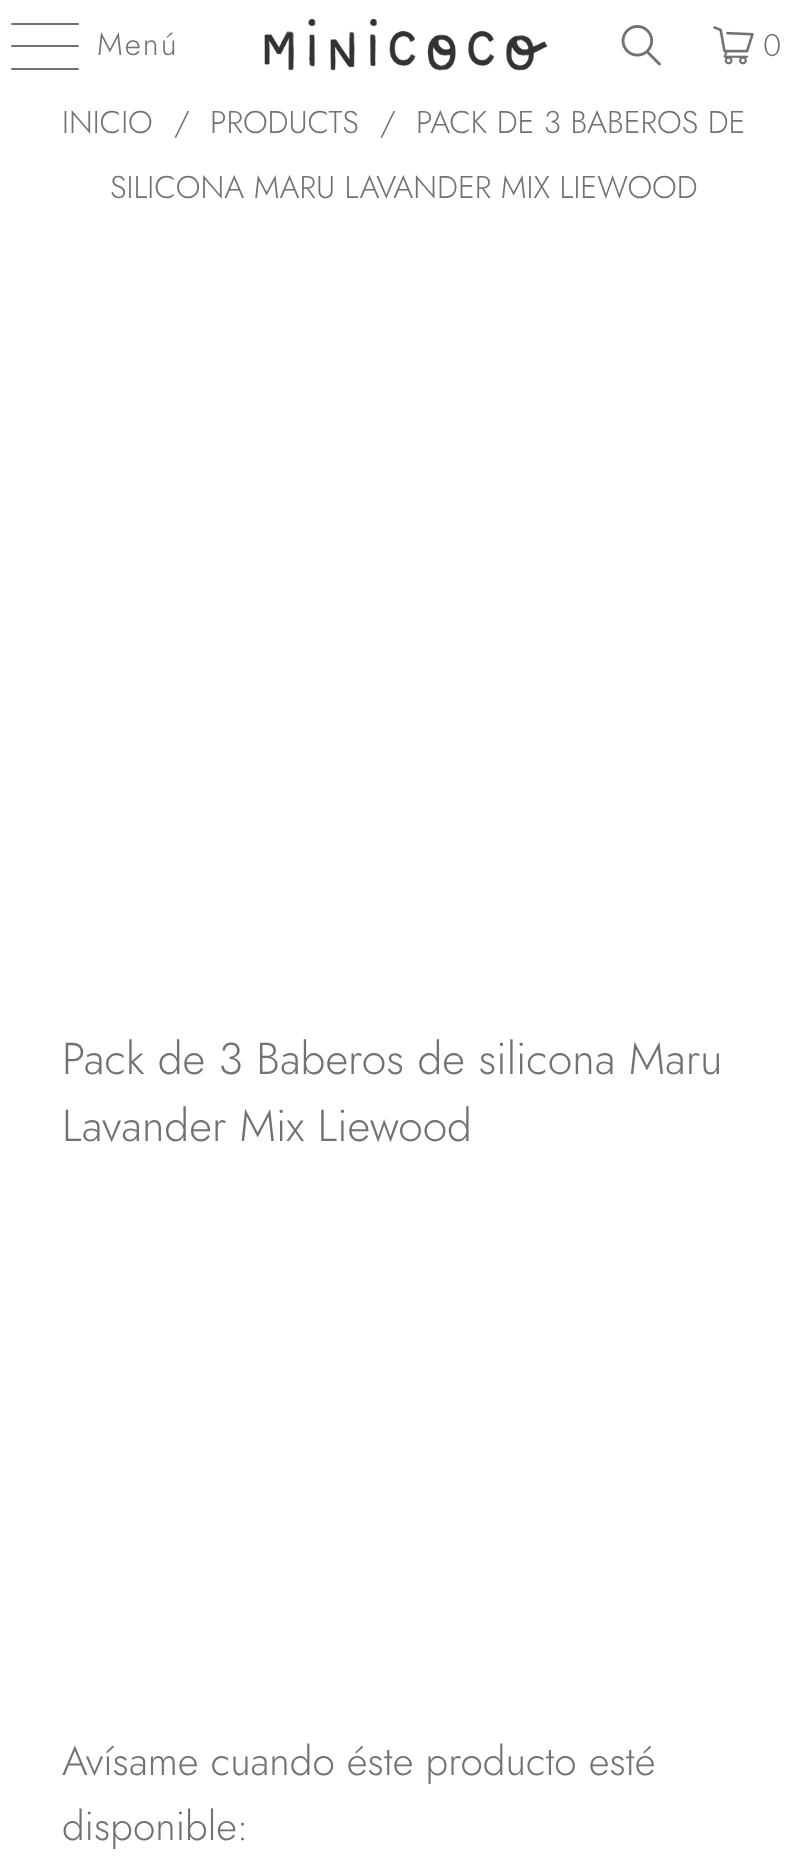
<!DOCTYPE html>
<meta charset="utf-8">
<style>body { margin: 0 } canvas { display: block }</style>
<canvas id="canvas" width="807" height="1860"></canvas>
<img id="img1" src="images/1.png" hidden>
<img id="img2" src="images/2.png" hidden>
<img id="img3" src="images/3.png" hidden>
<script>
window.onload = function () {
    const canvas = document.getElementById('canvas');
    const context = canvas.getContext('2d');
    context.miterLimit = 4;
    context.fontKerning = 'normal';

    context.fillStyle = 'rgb(255, 255, 255)';
    context.fillRect(0, 0, 807, 1860);
    context.fillStyle = 'rgb(114, 114, 114)';
    context.beginPath();
    context.roundRect(11, 23, 68, 2, 1);
    context.fill();
    context.beginPath();
    context.roundRect(11, 45, 68, 2, 1);
    context.fill();
    context.beginPath();
    context.roundRect(11, 68, 68, 2, 1);
    context.fill();
    context.drawImage(document.getElementById('img1'), 264, 18, 284, 53);
    context.drawImage(document.getElementById('img2'), 621, 25, 40, 41);
    context.drawImage(document.getElementById('img3'), 713, 26, 41, 39);
    context.letterSpacing = '2px';
    context.font = '300 31.5px Jost';
    context.fillText('Menú', 97, 55);
    context.fillText('0', 763, 56);
    context.letterSpacing = '0px';
    context.fillText('INICIO', 62, 133);
    context.fillText('/', 174, 133);
    context.fillText('PRODUCTS', 210, 133);
    context.fillText('/', 380, 133);
    context.fillText('PACK DE 3 BABEROS DE', 416, 133);
    context.fillText('SILICONA MARU LAVANDER MIX LIEWOOD', 110, 198);
    context.font = '300 44.5px Jost';
    context.fillText('Pack de 3 Baberos de silicona Maru', 62, 1074);
    context.fillText('Lavander Mix Liewood', 62, 1141);
    context.font = '300 40.5px Jost';
    context.fillText('Avísame cuando éste producto esté', 62, 1775);
    context.fillText('disponible:', 62, 1840);
};
</script>
